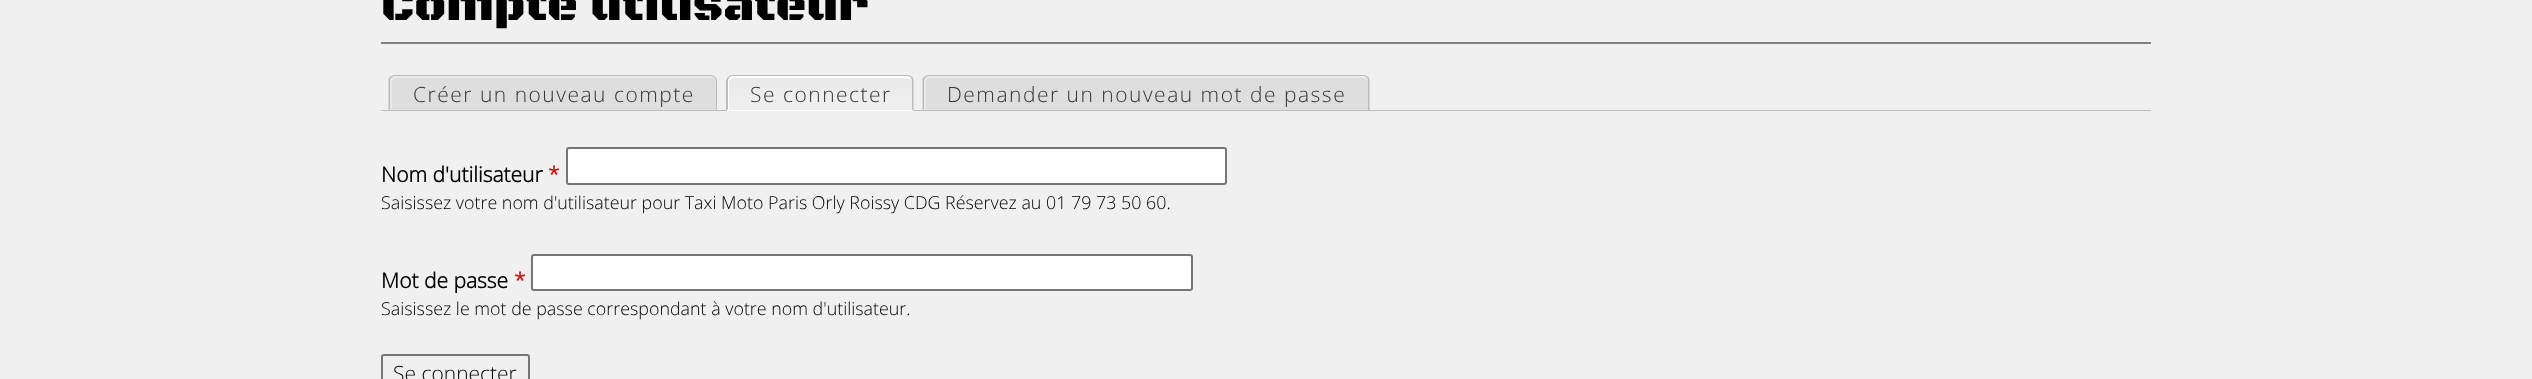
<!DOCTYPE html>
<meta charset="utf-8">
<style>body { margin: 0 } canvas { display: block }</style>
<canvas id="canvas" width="2532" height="379"></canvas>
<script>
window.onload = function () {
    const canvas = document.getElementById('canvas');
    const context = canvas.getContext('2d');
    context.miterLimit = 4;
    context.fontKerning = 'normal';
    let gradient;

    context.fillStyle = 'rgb(240, 240, 240)';
    context.fillRect(0, 0, 2532, 379);
    context.fillStyle = 'rgb(128, 128, 128)';
    context.fillRect(381, 42, 1770, 2);
    context.fillStyle = 'rgb(187, 187, 187)';
    context.fillRect(381, 110, 1770, 1);
    context.beginPath();
    context.moveTo(394, 75);
    context.bezierCurveTo(393, 75, 391, 76, 390, 77);
    context.lineTo(391, 78);
    context.lineTo(394, 76);
    context.lineTo(711, 76);
    context.lineTo(714, 78);
    context.lineTo(715, 77);
    context.bezierCurveTo(714, 76, 712, 75, 711, 75);
    context.closePath();
    context.fill();
    context.beginPath();
    context.moveTo(717, 111);
    context.lineTo(717, 81);
    context.bezierCurveTo(717, 79.5, 716, 78, 715, 77);
    context.lineTo(714, 78);
    context.bezierCurveTo(715, 79, 716, 80, 716, 81);
    context.lineTo(716, 110);
    context.closePath();
    context.fill();
    context.beginPath();
    context.moveTo(388.5, 111);
    context.lineTo(388.5, 79);
    context.lineTo(390, 76.5);
    context.lineTo(391, 78);
    context.bezierCurveTo(390.5, 79, 390, 80, 390, 81);
    context.lineTo(390, 109.5);
    context.closePath();
    context.fill();
    context.fillStyle = 'rgb(222, 222, 222)';
    context.beginPath();
    context.roundRect(390, 77, 326, 33, [6, 6, 0, 0]);
    context.fill();
    context.fillStyle = 'rgb(233, 233, 233)';
    context.beginPath();
    context.moveTo(396, 76);
    context.lineTo(710, 76);
    context.bezierCurveTo(713, 76, 716, 79, 716, 82);
    context.lineTo(716, 110);
    context.lineTo(390, 110);
    context.lineTo(390, 82);
    context.bezierCurveTo(390, 79, 393, 76, 396, 76);
    context.closePath();
    context.moveTo(396, 78);
    context.lineTo(710, 78);
    context.bezierCurveTo(713, 78, 716, 80, 716, 82);
    context.lineTo(716, 110);
    context.lineTo(392, 110);
    context.lineTo(392, 82);
    context.bezierCurveTo(392, 80, 394, 78, 396, 78);
    context.closePath();
    context.fill('evenodd');
    context.fillStyle = 'rgb(187, 187, 187)';
    context.beginPath();
    context.moveTo(732, 75);
    context.bezierCurveTo(730, 75, 729, 76, 728, 77);
    context.lineTo(729, 78);
    context.lineTo(732, 76);
    context.lineTo(909, 76);
    context.lineTo(911, 78);
    context.lineTo(912, 77);
    context.bezierCurveTo(911, 76, 909, 75, 908, 75);
    context.closePath();
    context.fill();
    context.beginPath();
    context.moveTo(913.5, 79);
    context.lineTo(913.5, 111);
    context.lineTo(912, 109.5);
    context.lineTo(912, 81);
    context.bezierCurveTo(912, 80, 911.5, 79, 911, 78);
    context.lineTo(912, 76.5);
    context.closePath();
    context.fill();
    context.fillStyle = 'rgb(255, 255, 255)';
    context.beginPath();
    context.moveTo(914, 111);
    context.lineTo(912, 110);
    context.lineTo(728, 110);
    context.lineTo(728, 109);
    context.lineTo(726, 111);
    context.closePath();
    context.fill();
    context.fillStyle = 'rgb(187, 187, 187)';
    context.beginPath();
    context.moveTo(726, 111);
    context.lineTo(728, 109);
    context.lineTo(728, 81);
    context.bezierCurveTo(728, 80, 728.5, 79, 729, 78);
    context.lineTo(728, 77);
    context.bezierCurveTo(727, 78, 726, 79.5, 726, 81);
    context.closePath();
    context.fill();
    context.save();
    context.beginPath();
    context.roundRect(728, 77, 184, 33, [6, 6, 0, 0]);
    context.clip();
    gradient = context.createLinearGradient(821, 78, 821, 110);
    gradient.addColorStop(0, 'rgb(233, 233, 233)');
    gradient.addColorStop(1, 'rgb(240, 240, 240)');
    context.fillStyle = gradient;
    context.fillRect(728, 78, 184, 32);
    context.restore();
    context.fillStyle = 'rgb(255, 255, 255)';
    context.beginPath();
    context.moveTo(734, 76);
    context.lineTo(906, 76);
    context.bezierCurveTo(909, 76, 912, 79, 912, 82);
    context.lineTo(912, 110);
    context.lineTo(728, 110);
    context.lineTo(728, 82);
    context.bezierCurveTo(728, 79, 730, 76, 734, 76);
    context.closePath();
    context.moveTo(734, 78);
    context.lineTo(906, 78);
    context.bezierCurveTo(909, 78, 912, 80, 912, 82);
    context.lineTo(912, 110);
    context.lineTo(729, 110);
    context.lineTo(729, 82);
    context.bezierCurveTo(729, 80, 731, 78, 734, 78);
    context.closePath();
    context.fill('evenodd');
    context.fillStyle = 'rgb(187, 187, 187)';
    context.beginPath();
    context.moveTo(928, 75);
    context.bezierCurveTo(927, 75, 925, 76, 924, 77);
    context.lineTo(925, 78);
    context.bezierCurveTo(926, 77, 927, 76, 928, 76);
    context.lineTo(1364, 76);
    context.bezierCurveTo(1365, 76, 1366, 77, 1367, 78);
    context.lineTo(1368, 77);
    context.bezierCurveTo(1367, 76, 1365, 75, 1364, 75);
    context.closePath();
    context.fill();
    context.beginPath();
    context.moveTo(1369.5, 79);
    context.lineTo(1369.5, 111);
    context.lineTo(1368, 109.5);
    context.lineTo(1368, 81);
    context.bezierCurveTo(1368, 80, 1367.5, 79, 1367, 78);
    context.lineTo(1368, 76.5);
    context.closePath();
    context.fill();
    context.beginPath();
    context.moveTo(922.5, 111);
    context.lineTo(922.5, 79);
    context.lineTo(924, 76.5);
    context.lineTo(925, 78);
    context.bezierCurveTo(924.5, 79, 924, 80, 924, 81);
    context.lineTo(924, 109.5);
    context.closePath();
    context.fill();
    context.fillStyle = 'rgb(222, 222, 222)';
    context.beginPath();
    context.roundRect(924, 77, 444, 33, [6, 6, 0, 0]);
    context.fill();
    context.fillStyle = 'rgb(233, 233, 233)';
    context.beginPath();
    context.moveTo(930, 76);
    context.lineTo(1362, 76);
    context.bezierCurveTo(1365, 76, 1368, 79, 1368, 82);
    context.lineTo(1368, 110);
    context.lineTo(924, 110);
    context.lineTo(924, 82);
    context.bezierCurveTo(924, 79, 927, 76, 930, 76);
    context.closePath();
    context.moveTo(930, 78);
    context.lineTo(1362, 78);
    context.bezierCurveTo(1365, 78, 1368, 80, 1368, 82);
    context.lineTo(1368, 110);
    context.lineTo(926, 110);
    context.lineTo(926, 82);
    context.bezierCurveTo(926, 80, 928, 78, 930, 78);
    context.closePath();
    context.fill('evenodd');
    context.fillStyle = 'rgb(255, 255, 255)';
    context.beginPath();
    context.roundRect(567, 148, 659, 36, 2);
    context.fill();
    context.strokeStyle = 'rgb(118, 118, 118)';
    context.lineWidth = 2;
    context.stroke();
    context.beginPath();
    context.roundRect(532, 255, 660, 35, 2);
    context.fill();
    context.stroke();
    context.beginPath();
    context.roundRect(382, 355, 147, 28, 2);
    context.stroke();
    context.font = '900 48px Black Ops One';
    context.fillStyle = 'rgb(0, 0, 0)';
    context.fillText('Compte utilisateur', 381, 20);
    context.letterSpacing = '1.5px';
    context.font = '300 21px Open Sans';
    context.fillStyle = 'rgb(51, 51, 51)';
    context.fillText('Créer un nouveau compte', 413, 102);
    context.fillText('Se connecter', 750, 102);
    context.fillText('Demander un nouveau mot de passe', 947, 102);
    context.letterSpacing = '0px';
    context.font = 'bold 21px Open Sans';
    context.fillStyle = 'rgb(0, 0, 0)';
    context.fillText('Nom d\'utilisateur', 381, 182);
    context.fillStyle = 'rgb(204, 0, 0)';
    context.fillText('*', 548, 182);
    context.font = '300 17.85px Open Sans';
    context.fillStyle = 'rgb(0, 0, 0)';
    context.fillText('Saisissez votre nom d\'utilisateur pour Taxi Moto Paris Orly Roissy CDG Réservez au 01 79 73 50 60.', 381, 209);
    context.font = 'bold 21px Open Sans';
    context.fillText('Mot de passe', 381, 288);
    context.fillStyle = 'rgb(204, 0, 0)';
    context.fillText('*', 514, 288);
    context.font = '300 17.85px Open Sans';
    context.fillStyle = 'rgb(0, 0, 0)';
    context.fillText('Saisissez le mot de passe correspondant à votre nom d\'utilisateur.', 381, 315);
    context.font = '300 21px Open Sans';
    context.fillText('Se connecter', 393, 381);
};
</script>
